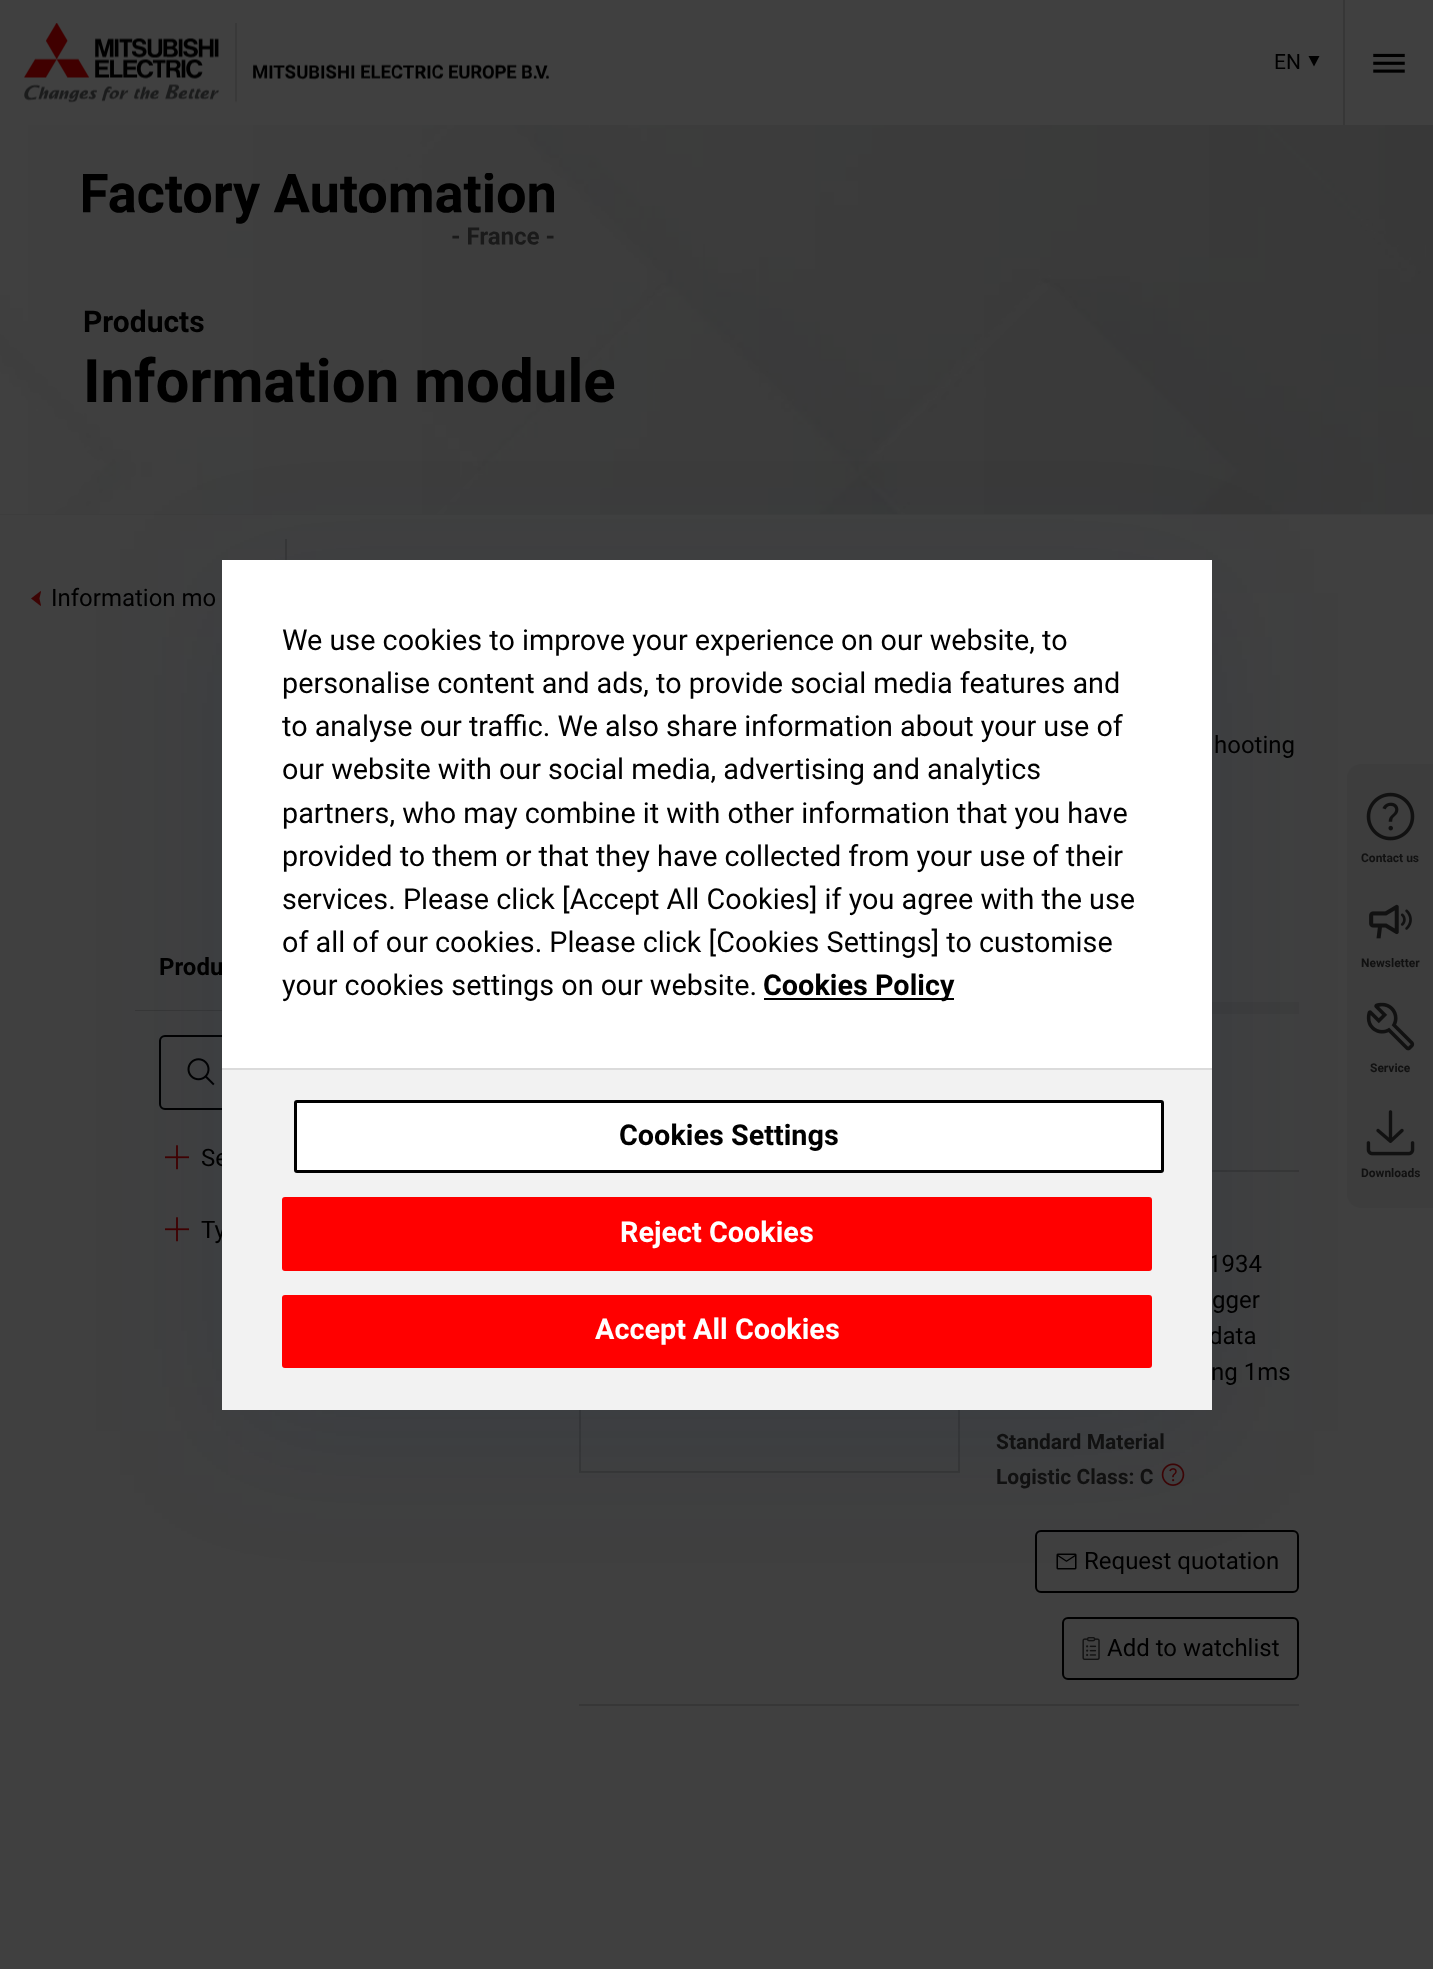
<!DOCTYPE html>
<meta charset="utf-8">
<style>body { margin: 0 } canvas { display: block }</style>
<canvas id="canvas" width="1433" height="1969"></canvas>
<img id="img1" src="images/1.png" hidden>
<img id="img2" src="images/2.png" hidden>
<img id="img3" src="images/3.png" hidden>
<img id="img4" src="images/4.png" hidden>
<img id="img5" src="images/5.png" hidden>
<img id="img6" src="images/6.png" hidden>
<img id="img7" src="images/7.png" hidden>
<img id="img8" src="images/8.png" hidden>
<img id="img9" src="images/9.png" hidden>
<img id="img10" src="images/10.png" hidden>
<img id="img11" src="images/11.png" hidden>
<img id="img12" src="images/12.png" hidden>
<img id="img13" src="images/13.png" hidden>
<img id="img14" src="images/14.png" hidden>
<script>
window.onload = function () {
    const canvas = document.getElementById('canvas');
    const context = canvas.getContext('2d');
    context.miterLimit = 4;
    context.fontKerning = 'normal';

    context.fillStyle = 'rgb(64, 64, 64)';
    context.fillRect(0, 0, 1433, 1969);
    context.drawImage(document.getElementById('img1'), 24, 23, 525, 80);
    context.fillStyle = 'rgb(0, 0, 0)';
    context.beginPath();
    context.moveTo(1314, 66.5);
    context.lineTo(1308.5, 56);
    context.lineTo(1319.5, 56);
    context.closePath();
    context.fill();
    context.fillStyle = 'rgb(55, 55, 55)';
    context.fillRect(1343, 0, 2, 125);
    context.drawImage(document.getElementById('img2'), 1373, 53, 32, 20);
    context.fillStyle = 'rgb(61, 61, 61)';
    context.fillRect(0, 514, 1433, 1);
    context.drawImage(document.getElementById('img3'), 0, 125, 1433, 389);
    context.drawImage(document.getElementById('img4'), 83, 173, 471, 72);
    context.fillStyle = 'rgb(55, 55, 55)';
    context.fillRect(285, 539, 2, 21);
    context.drawImage(document.getElementById('img5'), 31, 591, 10, 15);
    context.fillRect(135, 1010, 87, 1);
    context.beginPath();
    context.roundRect(160, 1036, 346, 73, 5);
    context.strokeStyle = 'rgb(0, 0, 0)';
    context.lineWidth = 2;
    context.stroke();
    context.drawImage(document.getElementById('img6'), 187, 1058, 28, 28);
    context.drawImage(document.getElementById('img7'), 165, 1145, 24, 25);
    context.drawImage(document.getElementById('img7'), 165, 1217, 24, 25);
    context.fillStyle = 'rgb(61, 61, 61)';
    context.fillRect(1212, 1002, 87, 12);
    context.fillStyle = 'rgb(55, 55, 55)';
    context.fillRect(1212, 1170, 87, 2);
    context.fillRect(579, 1704, 720, 2);
    context.strokeStyle = 'rgb(55, 55, 55)';
    context.strokeRect(580, 1197, 379, 275);
    context.drawImage(document.getElementById('img8'), 1161, 1463, 24, 23);
    context.beginPath();
    context.roundRect(1036, 1531, 262, 61, 5);
    context.strokeStyle = 'rgb(0, 0, 0)';
    context.stroke();
    context.drawImage(document.getElementById('img9'), 1056, 1553, 21, 17);
    context.beginPath();
    context.roundRect(1063, 1618, 235, 61, 5);
    context.stroke();
    context.drawImage(document.getElementById('img10'), 1082, 1637, 18, 23);
    context.fillStyle = 'rgba(61, 61, 61, 0.95)';
    context.beginPath();
    context.moveTo(1362, 764);
    context.lineTo(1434, 764);
    context.lineTo(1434, 1208);
    context.lineTo(1362, 1208);
    context.bezierCurveTo(1353.5, 1208, 1347, 1201.5, 1347, 1193);
    context.lineTo(1347, 779);
    context.bezierCurveTo(1347, 770.5, 1353.5, 764, 1362, 764);
    context.closePath();
    context.fill();
    context.drawImage(document.getElementById('img11'), 1366, 792, 49, 49);
    context.drawImage(document.getElementById('img12'), 1369, 904, 43, 35);
    context.drawImage(document.getElementById('img13'), 1366, 1002, 49, 49);
    context.drawImage(document.getElementById('img14'), 1366, 1110, 49, 46);
    context.fillStyle = 'rgba(24, 39, 75, 0.14)';
    context.filter = 'blur(66px)';
    context.beginPath();
    context.rect(228, 593, 978, 838);
    context.fill();
    context.filter = 'none';
    context.fillStyle = 'rgb(219, 219, 219)';
    context.fillRect(222, 1068, 990, 2);
    context.font = '21px Roboto';
    context.fillStyle = 'rgb(0, 0, 0)';
    context.fillText('EN', 1274, 69);
    context.font = 'bold 30px Roboto';
    context.fillText('Products', 83, 332);
    context.font = 'bold 60px Roboto';
    context.fillText('Information module', 83, 402);
    context.font = '24px Roboto';
    context.fillText('Information mo', 51, 606);
    context.fillText('hooting', 1214, 753);
    context.font = 'bold 24px Roboto';
    context.fillText('Produ', 159, 975);
    context.font = '24px Roboto';
    context.fillText('Se', 201, 1166);
    context.fillText('Ty', 201, 1238);
    context.fillText('1934', 1208, 1272);
    context.fillText('gger', 1212, 1308);
    context.fillText('data', 1209, 1344);
    context.fillText('ng 1ms', 1211, 1380);
    context.font = 'bold 21px Roboto';
    context.fillStyle = 'rgb(17, 17, 17)';
    context.fillText('Standard Material', 996, 1449);
    context.fillText('Logistic Class: C', 996, 1484);
    context.font = '24px Roboto';
    context.fillStyle = 'rgb(0, 0, 0)';
    context.fillText('Request quotation', 1084, 1569);
    context.fillText('Add to watchlist', 1107, 1656);
    context.font = 'bold 12px Roboto';
    context.fillStyle = 'rgb(17, 17, 17)';
    context.fillText('Contact us', 1361, 862);
    context.fillText('Newsletter', 1361, 967);
    context.fillText('Service', 1370, 1072);
    context.fillText('Downloads', 1361, 1177);
    context.fillStyle = 'rgb(255, 255, 255)';
    context.fillRect(222, 560, 990, 508);
    context.font = '28.8px Roboto';
    context.fillStyle = 'rgb(0, 0, 0)';
    context.fillText('We use cookies to improve your experience on our website, to', 282, 650);
    context.fillText('personalise content and ads, to provide social media features and', 282, 693);
    context.fillText('to analyse our traffic. We also share information about your use of', 282, 736);
    context.fillText('our website with our social media, advertising and analytics', 282, 779);
    context.fillText('partners, who may combine it with other information that you have', 282, 823);
    context.fillText('provided to them or that they have collected from your use of their', 282, 866);
    context.fillText('services. Please click [Accept All Cookies] if you agree with the use', 282, 909);
    context.fillText('of all of our cookies. Please click [Cookies Settings] to customise', 282, 952);
    context.fillText('your cookies settings on our website.', 282, 995);
    context.fillRect(764, 998, 190, 2);
    context.font = 'bold 28.8px Roboto';
    context.fillText('Cookies Policy', 763, 995);
    context.fillStyle = 'rgb(242, 242, 242)';
    context.fillRect(222, 1070, 990, 340);
    context.fillStyle = 'rgb(255, 255, 255)';
    context.beginPath();
    context.roundRect(295.5, 1101.5, 867, 70, 1.5);
    context.fill();
    context.lineWidth = 3;
    context.stroke();
    context.fillStyle = 'rgb(0, 0, 0)';
    context.fillText('Cookies Settings', 619, 1145);
    context.fillStyle = 'rgb(255, 0, 0)';
    context.beginPath();
    context.roundRect(283.5, 1198.5, 867, 71, 1.5);
    context.fill();
    context.strokeStyle = 'rgb(255, 0, 0)';
    context.stroke();
    context.fillStyle = 'rgb(255, 255, 255)';
    context.fillText('Reject Cookies', 620, 1242);
    context.fillStyle = 'rgb(255, 0, 0)';
    context.beginPath();
    context.roundRect(283.5, 1296.5, 867, 70, 1.5);
    context.fill();
    context.stroke();
    context.fillStyle = 'rgb(255, 255, 255)';
    context.fillText('Accept All Cookies', 595, 1339);
};
</script>
